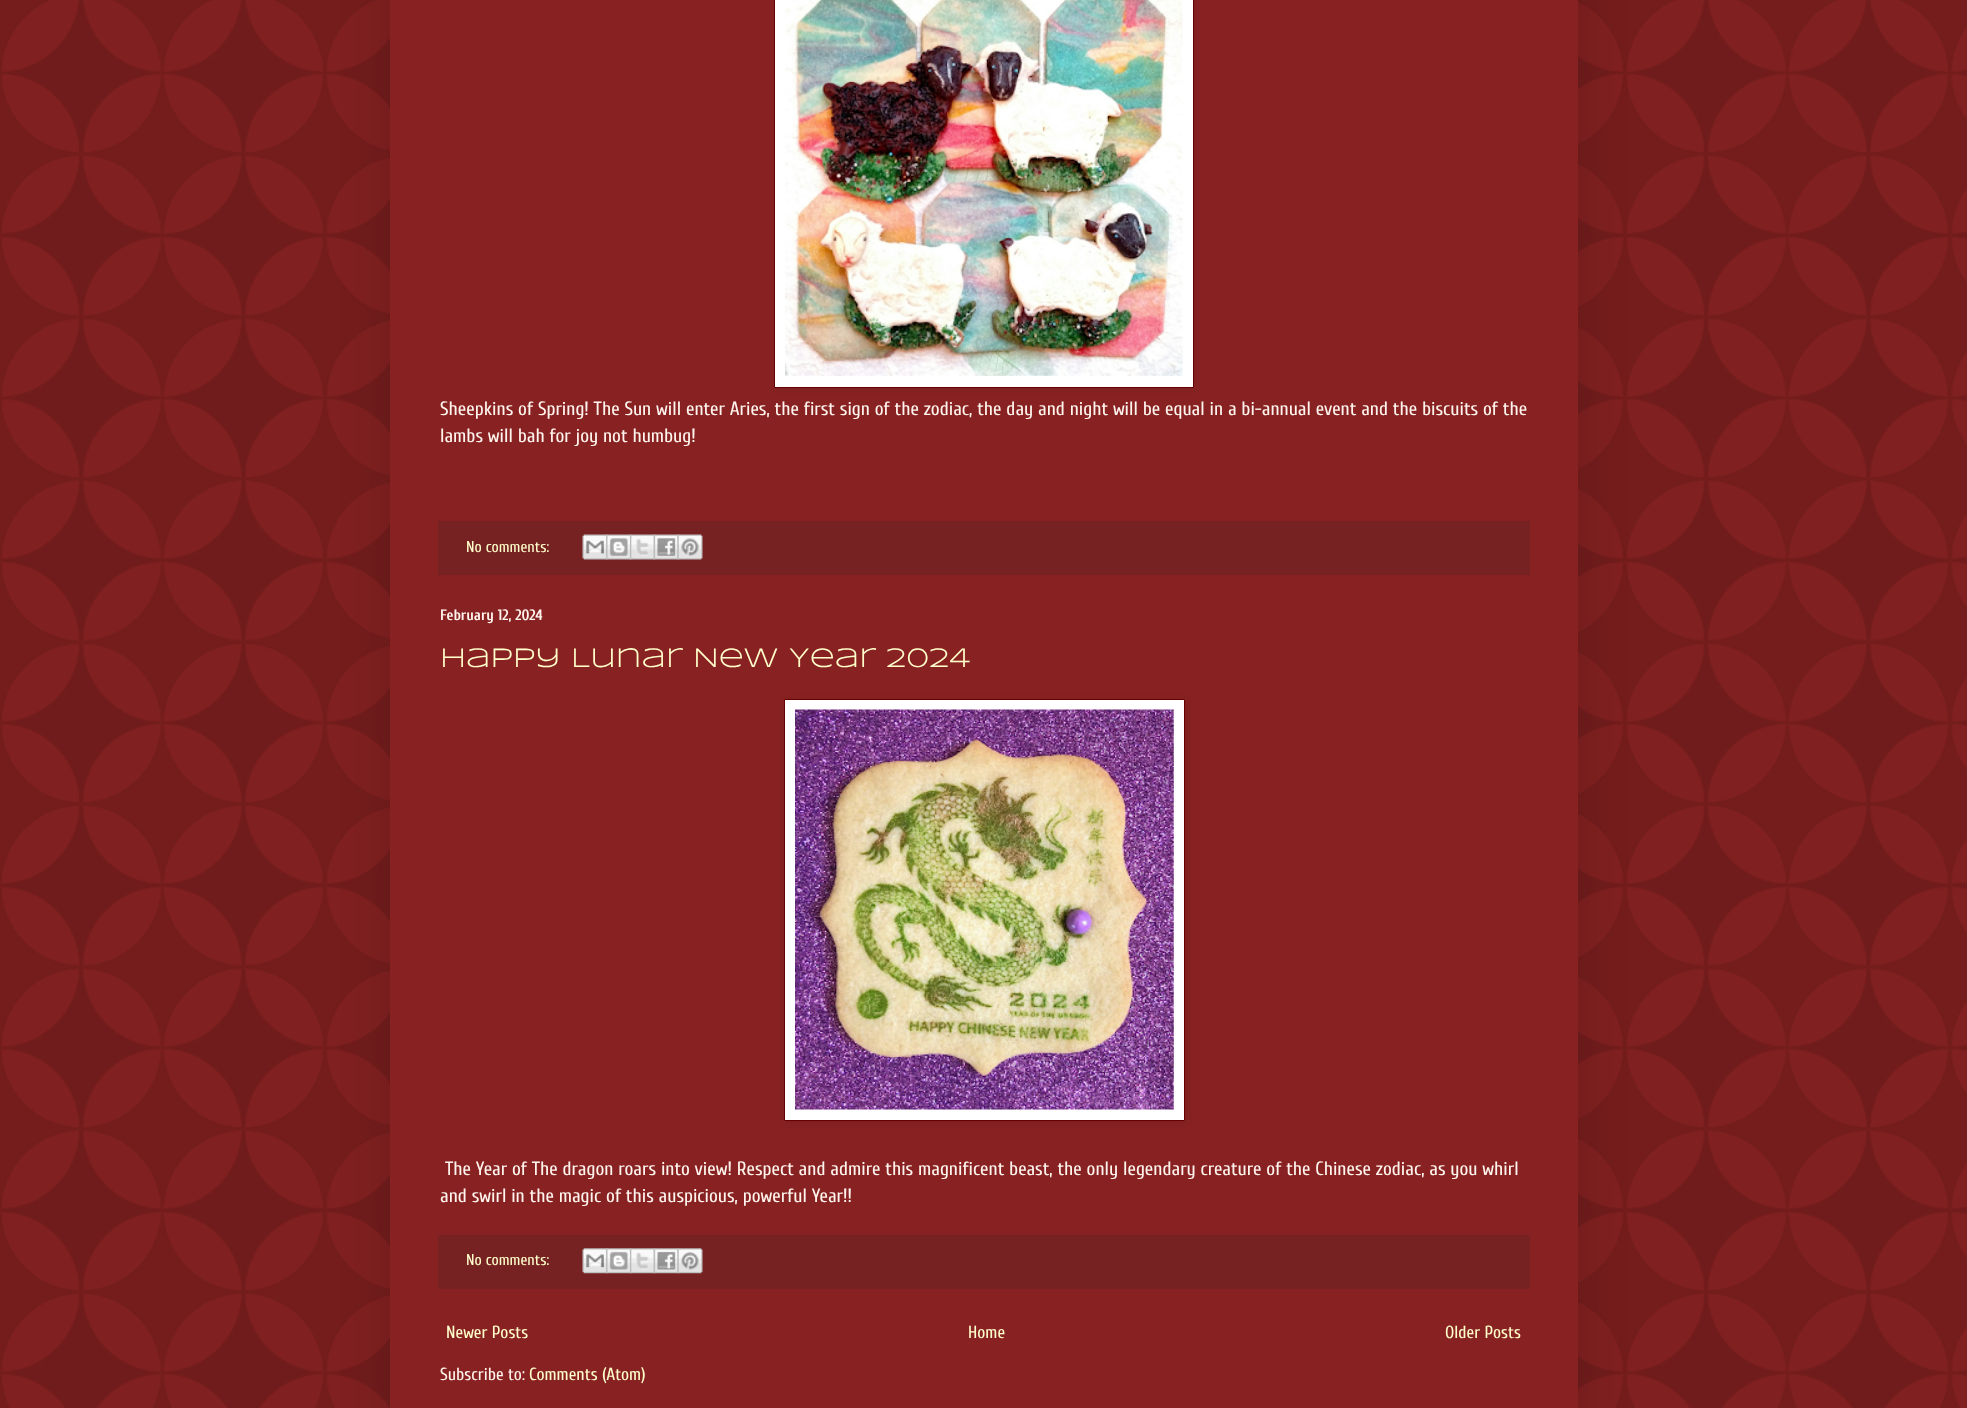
<!DOCTYPE html>
<meta charset="utf-8">
<style>body { margin: 0 } canvas { display: block }</style>
<canvas id="canvas" width="1967" height="1408"></canvas>
<img id="img1" src="images/1.png" hidden>
<img id="img2" src="images/2.png" hidden>
<img id="img3" src="images/3.png" hidden>
<img id="img4" src="images/4.png" hidden>
<img id="img5" src="images/5.png" hidden>
<img id="img6" src="images/6.png" hidden>
<img id="img7" src="images/7.png" hidden>
<img id="img8" src="images/8.png" hidden>
<img id="img9" src="images/9.png" hidden>
<img id="img10" src="images/10.png" hidden>
<img id="img11" src="images/11.png" hidden>
<img id="img12" src="images/12.png" hidden>
<img id="img13" src="images/13.png" hidden>
<script>
window.onload = function () {
    const canvas = document.getElementById('canvas');
    const context = canvas.getContext('2d');
    context.miterLimit = 4;
    context.fontKerning = 'normal';

    context.fillStyle = 'rgb(136, 34, 34)';
    context.fillRect(0, 0, 1967, 1408);
    context.drawImage(document.getElementById('img1'), 0, 0, 1967, 1408);
    context.fillStyle = 'rgba(0, 0, 0, 0.15)';
    context.filter = 'blur(25px)';
    context.beginPath();
    context.rect(390, -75, 1188, 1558);
    context.fill();
    context.filter = 'none';
    context.fillStyle = 'rgb(136, 34, 34)';
    context.fillRect(390, 0, 1188, 1408);
    context.fillStyle = 'rgba(0, 0, 0, 0.1)';
    context.filter = 'blur(3px)';
    context.beginPath();
    context.rect(775, -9, 420, 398);
    context.fill();
    context.filter = 'none';
    context.fillStyle = 'rgb(255, 255, 255)';
    context.beginPath();
    context.rect(774.5, -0.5, 419, 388);
    context.fill();
    context.strokeStyle = 'rgb(102, 0, 0)';
    context.stroke();
    context.drawImage(document.getElementById('img2'), 785, 0, 398, 376);
    context.fillStyle = 'rgb(119, 34, 34)';
    context.fillRect(438, 521, 1092, 54);
    context.drawImage(document.getElementById('img3'), 582, 534, 26, 26);
    context.drawImage(document.getElementById('img4'), 606, 534, 26, 26);
    context.drawImage(document.getElementById('img5'), 630, 534, 25, 26);
    context.drawImage(document.getElementById('img6'), 653, 534, 26, 26);
    context.drawImage(document.getElementById('img7'), 677, 534, 26, 26);
    context.fillStyle = 'rgba(0, 0, 0, 0.1)';
    context.filter = 'blur(3px)';
    context.beginPath();
    context.rect(785, 700, 401, 423);
    context.fill();
    context.filter = 'none';
    context.fillStyle = 'rgb(255, 255, 255)';
    context.beginPath();
    context.rect(784.5, 699.5, 400, 421);
    context.fill();
    context.stroke();
    context.drawImage(document.getElementById('img8'), 795, 709, 379, 401);
    context.fillStyle = 'rgb(119, 34, 34)';
    context.fillRect(438, 1235, 1092, 54);
    context.drawImage(document.getElementById('img9'), 582, 1248, 26, 26);
    context.drawImage(document.getElementById('img10'), 606, 1248, 26, 26);
    context.drawImage(document.getElementById('img11'), 630, 1248, 25, 26);
    context.drawImage(document.getElementById('img12'), 653, 1248, 26, 26);
    context.drawImage(document.getElementById('img13'), 677, 1248, 26, 26);
    context.font = '19.25px Cuprum';
    context.fillStyle = 'rgb(255, 245, 238)';
    context.fillText('Sheepkins of Spring! The Sun will enter Aries, the first sign of the zodiac, the day and night will be equal in a bi-annual event and the biscuits of the', 440, 415);
    context.fillText('lambs will bah for joy not humbug!', 440, 442);
    context.font = '15.75px Cuprum';
    context.fillStyle = 'rgb(255, 255, 204)';
    context.fillText('No comments:', 466, 552);
    context.font = 'bold 15px Cuprum';
    context.fillStyle = 'rgb(255, 245, 238)';
    context.fillText('February 12, 2024', 440, 620);
    context.font = '27.5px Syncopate';
    context.fillStyle = 'rgb(255, 255, 204)';
    context.fillText('Happy Lunar New Year 2024', 440, 667);
    context.font = '19.25px Cuprum';
    context.fillStyle = 'rgb(255, 245, 238)';
    context.fillText('The Year of The dragon roars into view! Respect and admire this magnificent beast, the only legendary creature of the Chinese zodiac, as you whirl', 445, 1175);
    context.fillText('and swirl in the magic of this auspicious, powerful Year!!', 440, 1202);
    context.font = '15.75px Cuprum';
    context.fillStyle = 'rgb(255, 255, 204)';
    context.fillText('No comments:', 466, 1265);
    context.font = '17.5px Cuprum';
    context.fillText('Newer Posts', 446, 1338);
    context.fillText('Home', 968, 1338);
    context.fillText('Older Posts', 1445, 1338);
    context.fillStyle = 'rgb(255, 245, 238)';
    context.fillText('Subscribe to:', 440, 1380);
    context.fillStyle = 'rgb(255, 255, 204)';
    context.fillText('Comments (Atom)', 529, 1380);
};
</script>
